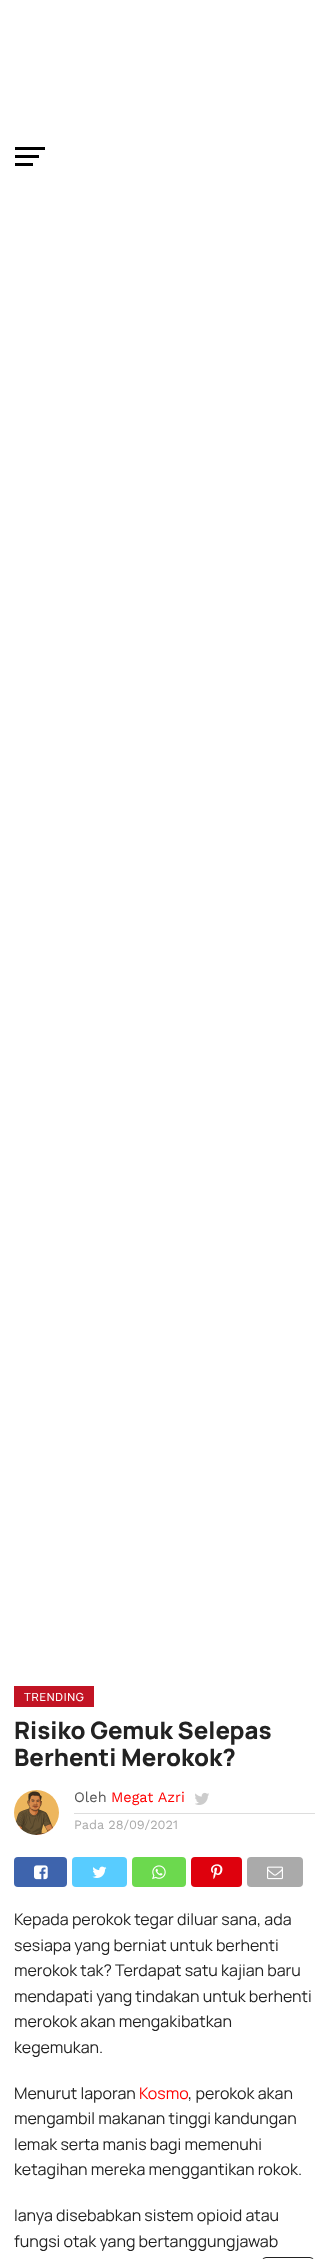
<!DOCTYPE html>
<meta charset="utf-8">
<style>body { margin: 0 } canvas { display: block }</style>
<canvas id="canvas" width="329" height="2259"></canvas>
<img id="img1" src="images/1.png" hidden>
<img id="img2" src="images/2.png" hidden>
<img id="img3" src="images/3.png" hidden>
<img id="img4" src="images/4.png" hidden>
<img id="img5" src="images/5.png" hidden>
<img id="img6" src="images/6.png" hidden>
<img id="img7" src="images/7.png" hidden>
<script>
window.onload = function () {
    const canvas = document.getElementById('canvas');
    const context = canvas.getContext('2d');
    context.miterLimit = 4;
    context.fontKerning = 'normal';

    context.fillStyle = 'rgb(255, 255, 255)';
    context.fillRect(0, 0, 329, 2259);
    context.fillStyle = 'rgb(0, 0, 0)';
    context.fillRect(15, 147, 30, 3);
    context.fillRect(15, 155, 24, 3);
    context.fillRect(15, 163, 18, 3);
    context.fillStyle = 'rgb(194, 20, 36)';
    context.fillRect(14, 1686, 80, 21);
    context.drawImage(document.getElementById('img1'), 14, 1790, 45, 45);
    context.fillStyle = 'rgb(221, 221, 221)';
    context.fillRect(74, 1813, 241, 1);
    context.drawImage(document.getElementById('img2'), 195, 1792, 14, 13);
    context.fillStyle = 'rgb(62, 100, 173)';
    context.beginPath();
    context.roundRect(14, 1857, 53, 30, 4);
    context.fill();
    context.drawImage(document.getElementById('img3'), 34, 1865, 14, 15);
    context.fillStyle = 'rgb(88, 204, 255)';
    context.beginPath();
    context.roundRect(72, 1857, 55, 30, 4);
    context.fill();
    context.drawImage(document.getElementById('img4'), 92, 1866, 15, 12);
    context.fillStyle = 'rgb(108, 217, 78)';
    context.beginPath();
    context.roundRect(132, 1857, 54, 30, 4);
    context.fill();
    context.drawImage(document.getElementById('img5'), 152, 1865, 14, 15);
    context.fillStyle = 'rgb(222, 1, 13)';
    context.beginPath();
    context.roundRect(191, 1857, 51, 30, 4);
    context.fill();
    context.drawImage(document.getElementById('img6'), 211, 1864, 12, 16);
    context.fillStyle = 'rgb(170, 170, 170)';
    context.beginPath();
    context.roundRect(247, 1857, 56, 30, 4);
    context.fill();
    context.drawImage(document.getElementById('img7'), 267, 1866, 16, 14);
    context.beginPath();
    context.roundRect(262.5, 2257.5, 51, 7, 4.5);
    context.strokeStyle = 'rgb(34, 34, 34)';
    context.stroke();
    context.letterSpacing = '0.75px';
    context.font = '200 11.25px "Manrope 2"';
    context.fillStyle = 'rgb(255, 255, 255)';
    context.fillText('TRENDING', 24, 1701);
    context.letterSpacing = '0px';
    context.font = '200 24px Manrope';
    context.fillStyle = 'rgb(34, 34, 34)';
    context.fillText('Risiko Gemuk Selepas', 14, 1739);
    context.fillText('Berhenti Merokok?', 14, 1766);
    context.font = '14.5px Work Sans';
    context.fillStyle = 'rgb(85, 85, 85)';
    context.fillText('Oleh', 74, 1802);
    context.fillStyle = 'rgb(255, 0, 0)';
    context.fillText('Megat Azri', 111, 1802);
    context.font = '12.75px Work Sans';
    context.fillStyle = 'rgb(170, 170, 170)';
    context.fillText('Pada 28/09/2021', 74, 1829);
    context.font = '200 16px "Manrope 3"';
    context.fillStyle = 'rgb(34, 34, 34)';
    context.fillText('Kepada perokok tegar diluar sana, ada', 14, 1925);
    context.fillText('sesiapa yang berniat untuk berhenti', 14, 1951);
    context.fillText('merokok tak? Terdapat satu kajian baru', 14, 1976);
    context.fillText('mendapati yang tindakan untuk berhenti', 14, 2002);
    context.fillText('merokok akan mengakibatkan', 14, 2027);
    context.fillText('kegemukan.', 14, 2053);
    context.fillText('Menurut laporan', 14, 2099);
    context.fillStyle = 'rgb(255, 0, 0)';
    context.fillText('Kosmo', 139, 2099);
    context.fillStyle = 'rgb(34, 34, 34)';
    context.fillText(', perokok akan', 188, 2099);
    context.fillText('mengambil makanan tinggi kandungan', 14, 2124);
    context.fillText('lemak serta manis bagi memenuhi', 14, 2150);
    context.fillText('ketagihan mereka menggantikan rokok.', 14, 2175);
    context.fillText('Ianya disebabkan sistem opioid atau', 14, 2221);
    context.fillText('fungsi otak yang bertanggungjawab', 14, 2247);
};
</script>
